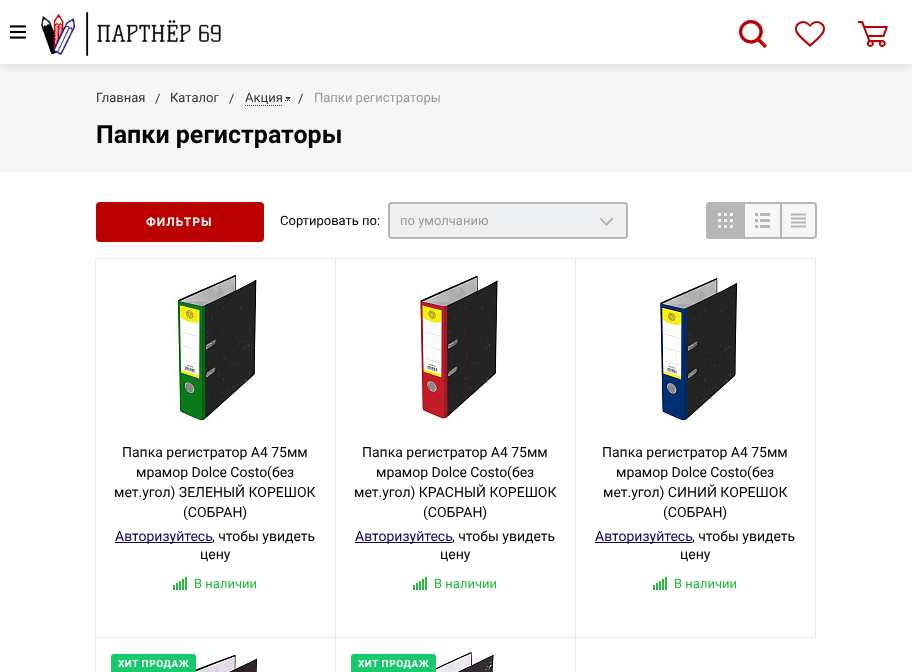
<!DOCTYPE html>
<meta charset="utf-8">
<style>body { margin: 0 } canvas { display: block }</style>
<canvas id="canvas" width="912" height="672"></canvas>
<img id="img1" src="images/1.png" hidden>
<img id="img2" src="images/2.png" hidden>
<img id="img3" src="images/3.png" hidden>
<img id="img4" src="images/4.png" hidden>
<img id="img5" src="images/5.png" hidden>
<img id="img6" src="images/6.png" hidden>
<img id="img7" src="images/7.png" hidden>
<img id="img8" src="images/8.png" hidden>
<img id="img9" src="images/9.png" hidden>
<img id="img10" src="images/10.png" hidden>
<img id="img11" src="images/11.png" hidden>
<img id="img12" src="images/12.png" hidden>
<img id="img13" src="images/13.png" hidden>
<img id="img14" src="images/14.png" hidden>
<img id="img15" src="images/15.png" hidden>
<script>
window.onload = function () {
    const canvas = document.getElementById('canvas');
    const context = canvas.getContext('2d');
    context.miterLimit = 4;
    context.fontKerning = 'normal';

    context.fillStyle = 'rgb(255, 255, 255)';
    context.fillRect(0, 0, 912, 672);
    context.fillStyle = 'rgb(246, 246, 246)';
    context.fillRect(0, 64, 912, 108);
    context.save();
    context.beginPath();
    context.rect(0, 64, 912, 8);
    context.clip();
    context.fillStyle = 'rgba(5, 5, 5, 0.15)';
    context.filter = 'blur(7.5px)';
    context.beginPath();
    context.rect(0, 0, 912, 64);
    context.fill();
    context.filter = 'none';
    context.restore();
    context.drawImage(document.getElementById('img1'), 10, 25, 16, 14);
    context.drawImage(document.getElementById('img2'), 41, 12, 180, 44);
    context.drawImage(document.getElementById('img3'), 739, 20, 28, 29);
    context.drawImage(document.getElementById('img4'), 795, 21, 30, 26);
    context.drawImage(document.getElementById('img5'), 858, 21, 30, 26);
    context.beginPath();
    context.moveTo(245, 105.5);
    context.lineTo(282, 105.5);
    context.strokeStyle = 'rgb(51, 51, 51)';
    context.setLineDash([1, 1]);
    context.stroke();
    context.beginPath();
    context.moveTo(285, 100.5);
    context.lineTo(286, 100.5);
    context.moveTo(287, 100.5);
    context.lineTo(288, 100.5);
    context.moveTo(289, 100.5);
    context.lineTo(290, 100.5);
    context.setLineDash([]);
    context.stroke();
    context.fillStyle = 'rgb(51, 51, 51)';
    context.beginPath();
    context.moveTo(285, 97);
    context.lineTo(291, 97);
    context.lineTo(288, 100);
    context.closePath();
    context.fill();
    context.fillStyle = 'rgb(186, 0, 0)';
    context.beginPath();
    context.roundRect(96, 202, 168, 40, 4);
    context.fill();
    context.beginPath();
    context.roundRect(389, 203, 238, 35, 3);
    context.strokeStyle = 'rgb(182, 182, 182)';
    context.lineWidth = 2;
    context.stroke();
    context.fillStyle = 'rgb(238, 239, 241)';
    context.beginPath();
    context.roundRect(390, 204, 236, 33, 4);
    context.fill();
    context.fillStyle = 'rgb(182, 182, 182)';
    context.beginPath();
    context.moveTo(612, 217.5);
    context.lineTo(613.5, 219);
    context.lineTo(606.5, 226);
    context.lineTo(605, 224.5);
    context.closePath();
    context.fill();
    context.beginPath();
    context.moveTo(600.5, 217.5);
    context.lineTo(608, 224.5);
    context.lineTo(606.5, 226);
    context.lineTo(599.5, 219);
    context.closePath();
    context.fill();
    context.beginPath();
    context.roundRect(706, 202, 37, 37, [4, 0, 0, 4]);
    context.fill();
    context.beginPath();
    context.moveTo(710, 202);
    context.lineTo(743, 202);
    context.lineTo(743, 239);
    context.lineTo(710, 239);
    context.bezierCurveTo(708, 239, 706, 237, 706, 235);
    context.lineTo(706, 206);
    context.bezierCurveTo(706, 204, 708, 202, 710, 202);
    context.closePath();
    context.moveTo(710, 204);
    context.lineTo(743, 204);
    context.lineTo(743, 237);
    context.lineTo(710, 237);
    context.bezierCurveTo(709, 237, 708, 236, 708, 235);
    context.lineTo(708, 206);
    context.bezierCurveTo(708, 205, 709, 204, 710, 204);
    context.closePath();
    context.fill('evenodd');
    context.drawImage(document.getElementById('img6'), 718, 213, 15, 15);
    context.fillStyle = 'rgb(246, 246, 246)';
    context.fillRect(745, 204, 35, 33);
    context.fillStyle = 'rgb(182, 182, 182)';
    context.fillRect(743, 202, 37, 2);
    context.fillRect(743, 237, 37, 2);
    context.fillRect(743, 202, 2, 37);
    context.drawImage(document.getElementById('img7'), 755, 213, 15, 15);
    context.fillStyle = 'rgb(246, 246, 246)';
    context.beginPath();
    context.roundRect(781, 203, 35, 35, [0, 3, 3, 0]);
    context.fill();
    context.stroke();
    context.drawImage(document.getElementById('img8'), 791, 213, 15, 15);
    context.strokeStyle = 'rgb(233, 233, 233)';
    context.lineWidth = 1;
    context.strokeRect(95.5, 258.5, 240, 379);
    context.drawImage(document.getElementById('img9'), 172, 273, 88, 149);
    context.fillStyle = 'rgb(16, 0, 99)';
    context.fillRect(115, 542, 97, 1);
    context.drawImage(document.getElementById('img10'), 173, 577, 14, 13);
    context.drawImage(document.getElementById('img11'), 173, 577, 14, 13);
    context.strokeRect(335.5, 258.5, 240, 379);
    context.drawImage(document.getElementById('img12'), 418, 275, 80, 147);
    context.fillRect(355, 542, 97, 1);
    context.drawImage(document.getElementById('img10'), 413, 577, 14, 13);
    context.drawImage(document.getElementById('img11'), 413, 577, 14, 13);
    context.strokeRect(575.5, 258.5, 240, 379);
    context.drawImage(document.getElementById('img13'), 657, 277, 82, 145);
    context.fillRect(595, 542, 97, 1);
    context.drawImage(document.getElementById('img10'), 653, 577, 14, 13);
    context.drawImage(document.getElementById('img11'), 653, 577, 14, 13);
    context.strokeRect(95.5, 637.5, 240, 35);
    context.drawImage(document.getElementById('img14'), 195, 655, 63, 17);
    context.fillStyle = 'rgb(25, 202, 108)';
    context.beginPath();
    context.roundRect(111, 654, 85, 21, 3);
    context.fill();
    context.strokeRect(335.5, 637.5, 240, 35);
    context.drawImage(document.getElementById('img15'), 423, 651, 73, 21);
    context.beginPath();
    context.roundRect(351, 654, 85, 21, 3);
    context.fill();
    context.font = '13px Roboto';
    context.fillStyle = 'rgb(51, 51, 51)';
    context.fillText('Главная', 96, 102);
    context.fillText('/', 155, 103);
    context.fillText('Каталог', 170, 102);
    context.fillText('/', 229, 103);
    context.fillText('Акция', 245, 102);
    context.fillText('/', 298, 103);
    context.fillStyle = 'rgb(153, 153, 153)';
    context.fillText('Папки регистраторы', 314, 102);
    context.font = 'bold 25px Roboto';
    context.fillStyle = 'rgb(0, 0, 0)';
    context.fillText('Папки регистраторы', 96, 143);
    context.letterSpacing = '1px';
    context.font = 'bold 12px Roboto';
    context.fillStyle = 'rgb(255, 255, 255)';
    context.fillText('ФИЛЬТРЫ', 146, 226);
    context.letterSpacing = '0px';
    context.font = '13px Roboto';
    context.fillStyle = 'rgb(0, 0, 0)';
    context.fillText('Сортировать по:', 280, 225);
    context.fillStyle = 'rgb(153, 153, 153)';
    context.fillText('по умолчанию', 400, 225);
    context.font = '14px Roboto';
    context.fillStyle = 'rgb(0, 0, 0)';
    context.fillText('Папка регистратор А4 75мм', 122, 457);
    context.fillText('мрамор Dolce Costo(без', 136, 477);
    context.fillText('мет.угол) ЗЕЛЕНЫЙ КОРЕШОК', 114, 497);
    context.fillText('(СОБРАН)', 183, 517);
    context.fillStyle = 'rgb(16, 0, 99)';
    context.fillText('Авторизуйтесь', 115, 541);
    context.fillStyle = 'rgb(0, 0, 0)';
    context.fillText(', чтобы увидеть', 212, 541);
    context.fillText('цену', 200, 559);
    context.font = '13px Roboto';
    context.fillStyle = 'rgb(31, 187, 53)';
    context.fillText('В наличии', 194, 588);
    context.font = '14px Roboto';
    context.fillStyle = 'rgb(0, 0, 0)';
    context.fillText('Папка регистратор А4 75мм', 362, 457);
    context.fillText('мрамор Dolce Costo(без', 376, 477);
    context.fillText('мет.угол) КРАСНЫЙ КОРЕШОК', 354, 497);
    context.fillText('(СОБРАН)', 423, 517);
    context.fillStyle = 'rgb(16, 0, 99)';
    context.fillText('Авторизуйтесь', 355, 541);
    context.fillStyle = 'rgb(0, 0, 0)';
    context.fillText(', чтобы увидеть', 452, 541);
    context.fillText('цену', 440, 559);
    context.font = '13px Roboto';
    context.fillStyle = 'rgb(31, 187, 53)';
    context.fillText('В наличии', 434, 588);
    context.font = '14px Roboto';
    context.fillStyle = 'rgb(0, 0, 0)';
    context.fillText('Папка регистратор А4 75мм', 602, 457);
    context.fillText('мрамор Dolce Costo(без', 616, 477);
    context.fillText('мет.угол) СИНИЙ КОРЕШОК', 603, 497);
    context.fillText('(СОБРАН)', 663, 517);
    context.fillStyle = 'rgb(16, 0, 99)';
    context.fillText('Авторизуйтесь', 595, 541);
    context.fillStyle = 'rgb(0, 0, 0)';
    context.fillText(', чтобы увидеть', 692, 541);
    context.fillText('цену', 680, 559);
    context.font = '13px Roboto';
    context.fillStyle = 'rgb(31, 187, 53)';
    context.fillText('В наличии', 674, 588);
    context.letterSpacing = '0.5px';
    context.font = 'bold 10px Roboto';
    context.fillStyle = 'rgb(255, 255, 255)';
    context.fillText('ХИТ ПРОДАЖ', 118, 667);
    context.fillText('ХИТ ПРОДАЖ', 358, 667);
};
</script>
